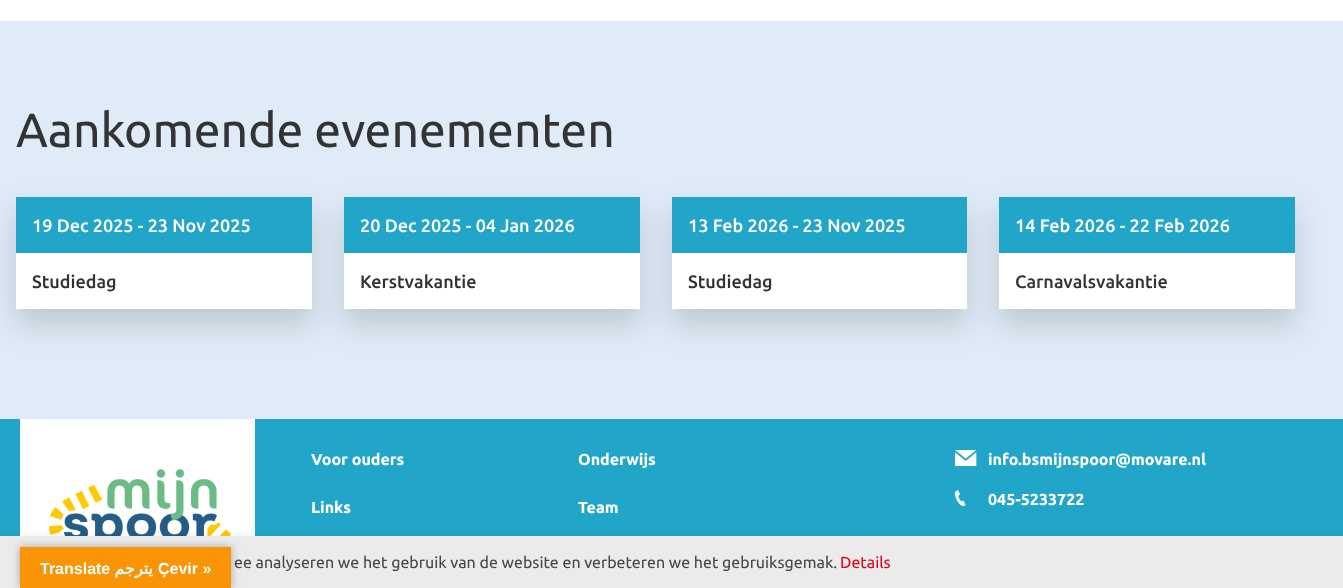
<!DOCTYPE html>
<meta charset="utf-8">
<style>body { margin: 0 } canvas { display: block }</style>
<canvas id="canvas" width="1343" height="588"></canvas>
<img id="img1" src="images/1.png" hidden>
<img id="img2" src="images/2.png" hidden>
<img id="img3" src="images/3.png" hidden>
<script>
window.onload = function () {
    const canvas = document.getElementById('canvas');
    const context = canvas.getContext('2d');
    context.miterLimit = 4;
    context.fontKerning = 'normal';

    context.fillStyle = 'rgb(255, 255, 255)';
    context.fillRect(0, 0, 1343, 588);
    context.fillStyle = 'rgb(223, 236, 247)';
    context.fillRect(0, 21, 1343, 398);
    context.fillStyle = 'rgba(0, 0, 0, 0.16)';
    context.filter = 'blur(15px)';
    context.beginPath();
    context.rect(16, 212, 296, 112);
    context.fill();
    context.filter = 'none';
    context.fillStyle = 'rgb(255, 255, 255)';
    context.fillRect(16, 253, 296, 56);
    context.fillStyle = 'rgb(33, 166, 202)';
    context.fillRect(16, 197, 296, 56);
    context.fillStyle = 'rgba(0, 0, 0, 0.16)';
    context.filter = 'blur(15px)';
    context.beginPath();
    context.rect(344, 212, 296, 112);
    context.fill();
    context.filter = 'none';
    context.fillStyle = 'rgb(255, 255, 255)';
    context.fillRect(344, 253, 296, 56);
    context.fillStyle = 'rgb(33, 166, 202)';
    context.fillRect(344, 197, 296, 56);
    context.fillStyle = 'rgba(0, 0, 0, 0.16)';
    context.filter = 'blur(15px)';
    context.beginPath();
    context.rect(672, 212, 295, 112);
    context.fill();
    context.filter = 'none';
    context.fillStyle = 'rgb(255, 255, 255)';
    context.fillRect(672, 253, 295, 56);
    context.fillStyle = 'rgb(33, 166, 202)';
    context.fillRect(672, 197, 295, 56);
    context.fillStyle = 'rgba(0, 0, 0, 0.16)';
    context.filter = 'blur(15px)';
    context.beginPath();
    context.rect(999, 212, 296, 112);
    context.fill();
    context.filter = 'none';
    context.fillStyle = 'rgb(255, 255, 255)';
    context.fillRect(999, 253, 296, 56);
    context.fillStyle = 'rgb(33, 166, 202)';
    context.fillRect(999, 197, 296, 56);
    context.fillRect(0, 419, 1343, 117);
    context.fillStyle = 'rgb(255, 255, 255)';
    context.fillRect(20, 419, 235, 117);
    context.drawImage(document.getElementById('img1'), 48, 469, 184, 67);
    context.drawImage(document.getElementById('img2'), 955, 450, 22, 16);
    context.drawImage(document.getElementById('img3'), 955, 490, 11, 16);
    context.fillStyle = 'rgba(0, 0, 0, 0.06)';
    context.filter = 'blur(3px)';
    context.beginPath();
    context.rect(-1, 535, 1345, 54);
    context.fill();
    context.filter = 'none';
    context.fillStyle = 'rgb(235, 235, 235)';
    context.fillRect(0, 536, 1343, 52);
    context.fillStyle = 'rgba(0, 0, 0, 0.3)';
    context.filter = 'blur(4.5px)';
    context.beginPath();
    context.rect(20, 547, 211, 41);
    context.fill();
    context.filter = 'none';
    context.fillStyle = 'rgb(248, 148, 6)';
    context.fillRect(20, 547, 211, 41);
    context.font = '48px Ubuntu';
    context.fillStyle = 'rgb(51, 51, 51)';
    context.fillText('Aankomende evenementen', 16, 147);
    context.font = '500 18px Ubuntu';
    context.fillStyle = 'rgb(255, 255, 255)';
    context.fillText('19 Dec 2025 - 23 Nov 2025', 32, 232);
    context.fillStyle = 'rgb(51, 51, 51)';
    context.fillText('Studiedag', 32, 288);
    context.fillStyle = 'rgb(255, 255, 255)';
    context.fillText('20 Dec 2025 - 04 Jan 2026', 360, 232);
    context.fillStyle = 'rgb(51, 51, 51)';
    context.fillText('Kerstvakantie', 360, 288);
    context.fillStyle = 'rgb(255, 255, 255)';
    context.fillText('13 Feb 2026 - 23 Nov 2025', 688, 232);
    context.fillStyle = 'rgb(51, 51, 51)';
    context.fillText('Studiedag', 688, 288);
    context.fillStyle = 'rgb(255, 255, 255)';
    context.fillText('14 Feb 2026 - 22 Feb 2026', 1015, 232);
    context.fillStyle = 'rgb(51, 51, 51)';
    context.fillText('Carnavalsvakantie', 1015, 288);
    context.font = 'bold 16px Ubuntu';
    context.fillStyle = 'rgb(255, 255, 255)';
    context.fillText('Voor ouders', 311, 465);
    context.fillText('Links', 311, 513);
    context.fillText('Onderwijs', 578, 465);
    context.fillText('Team', 578, 513);
    context.fillText('info.bsmijnspoor@movare.nl', 988, 465);
    context.fillText('045-5233722', 988, 505);
    context.font = 'bold 16px Liberation Sans';
    context.fillText('Translate', 40, 574);
    context.direction = 'rtl';
    context.font = 'bold 16px DejaVu Sans';
    context.fillText('يترجم', 153, 574);
    context.direction = 'ltr';
    context.font = 'bold 16px Liberation Sans';
    context.fillText('Çevir »', 158, 574);
    context.font = '16px Ubuntu';
    context.fillStyle = 'rgb(70, 71, 71)';
    context.fillText('ee analyseren we het gebruik van de website en verbeteren we het gebruiksgemak.', 234, 568);
    context.fillStyle = 'rgb(225, 0, 26)';
    context.fillText('Details', 840, 568);
};
</script>
